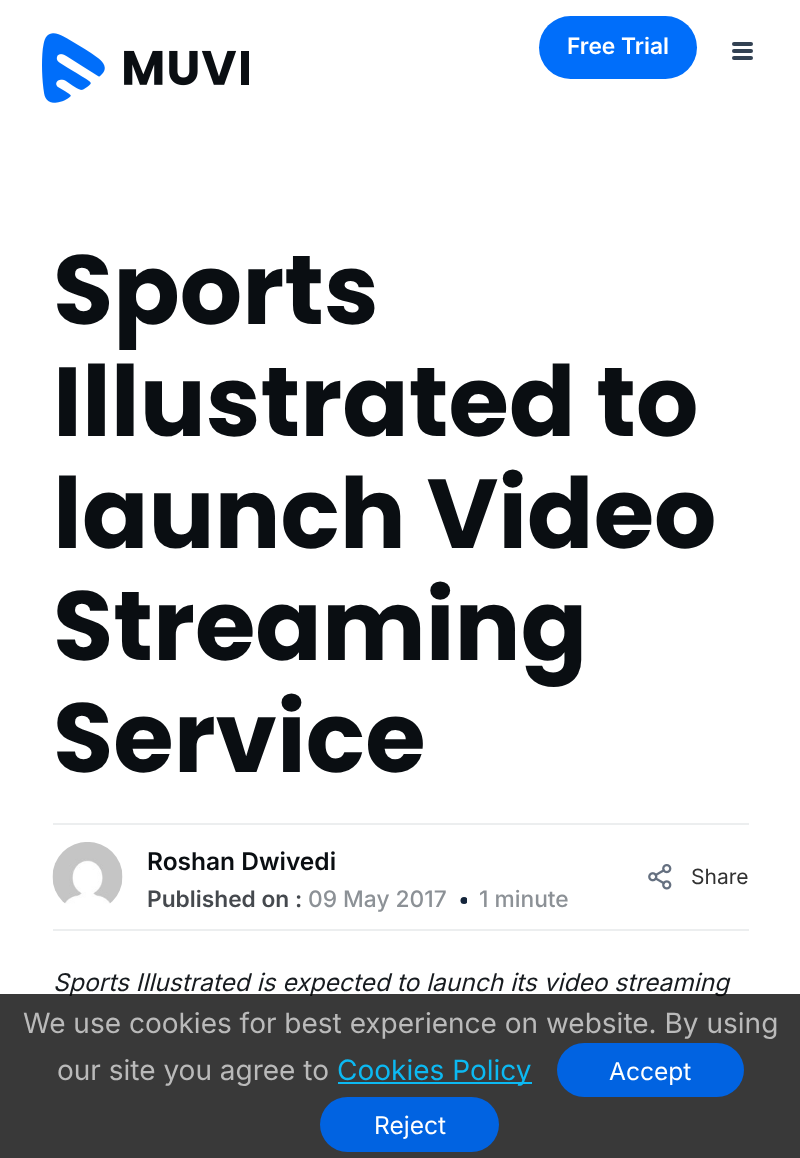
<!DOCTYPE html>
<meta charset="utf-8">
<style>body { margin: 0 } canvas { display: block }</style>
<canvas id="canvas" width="800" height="1158"></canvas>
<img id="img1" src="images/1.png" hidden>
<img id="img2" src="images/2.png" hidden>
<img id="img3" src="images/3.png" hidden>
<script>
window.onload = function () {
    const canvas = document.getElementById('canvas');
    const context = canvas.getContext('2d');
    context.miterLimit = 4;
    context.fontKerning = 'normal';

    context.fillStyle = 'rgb(255, 255, 255)';
    context.fillRect(0, 0, 800, 1158);
    context.drawImage(document.getElementById('img1'), 42, 33, 207, 70);
    context.fillStyle = 'rgb(0, 110, 250)';
    context.beginPath();
    context.roundRect(539, 16, 158, 63, 31.5);
    context.fill();
    context.fillStyle = 'rgb(51, 66, 83)';
    context.beginPath();
    context.roundRect(732, 42, 21, 4, 2);
    context.fill();
    context.beginPath();
    context.roundRect(732, 49, 21, 4, 2);
    context.fill();
    context.beginPath();
    context.roundRect(732, 56, 21, 4, 2);
    context.fill();
    context.fillStyle = 'rgb(236, 238, 239)';
    context.fillRect(53, 823, 696, 2);
    context.fillRect(53, 929, 696, 2);
    context.drawImage(document.getElementById('img2'), 52, 842, 71, 62);
    context.save();
    context.beginPath();
    context.rect(460, 896, 7, 9);
    context.clip();
    context.fillStyle = 'rgb(20, 37, 59)';
    context.beginPath();
    context.arc(464, 900.5, 3.5, 0, 2 * Math.PI);
    context.fill();
    context.restore();
    context.drawImage(document.getElementById('img3'), 648, 864, 24, 26);
    context.font = '600 22.75px Inter';
    context.fillStyle = 'rgb(255, 255, 255)';
    context.fillText('Free Trial', 567, 54);
    context.font = 'bold 98px Poppins';
    context.fillStyle = 'rgb(10, 14, 18)';
    context.fillText('Sports', 53, 324);
    context.fillText('Illustrated to', 53, 436);
    context.fillText('launch Video', 53, 548);
    context.fillText('Streaming', 53, 660);
    context.fillText('Service', 53, 772);
    context.font = '600 24.5px Inter';
    context.fillText('Roshan Dwivedi', 147, 870);
    context.font = '600 22.75px Inter';
    context.fillStyle = 'rgb(69, 73, 78)';
    context.fillText('Published on :', 147, 907);
    context.font = '500 22.75px Inter';
    context.fillStyle = 'rgb(140, 145, 150)';
    context.fillText('09 May 2017', 308, 907);
    context.fillText('1 minute', 479, 907);
    context.font = '21px Inter';
    context.fillStyle = 'rgb(49, 49, 49)';
    context.fillText('Share', 691, 884);
    context.font = 'italic 24.5px Inter';
    context.fillStyle = 'rgb(23, 27, 31)';
    context.fillText('Sports Illustrated is expected to launch its video streaming', 53, 991);
    context.fillStyle = 'rgba(8, 8, 8, 0.8)';
    context.fillRect(0, 994, 800, 164);
    context.font = '28px Inter';
    context.fillStyle = 'rgb(186, 186, 186)';
    context.fillText('We use cookies for best experience on website. By using', 23, 1033);
    context.fillText('our site you agree to', 57, 1080);
    context.fillStyle = 'rgb(12, 185, 242)';
    context.fillRect(338, 1082, 194, 2);
    context.fillText('Cookies Policy', 337, 1080);
    context.fillStyle = 'rgb(1, 99, 225)';
    context.beginPath();
    context.roundRect(557, 1043, 187, 54, 27);
    context.fill();
    context.font = '24.5px Inter';
    context.fillStyle = 'rgb(255, 255, 255)';
    context.fillText('Accept', 609, 1080);
    context.fillStyle = 'rgb(1, 99, 225)';
    context.beginPath();
    context.roundRect(320, 1097, 179, 55, 27.5);
    context.fill();
    context.fillStyle = 'rgb(255, 255, 255)';
    context.fillText('Reject', 374, 1134);
};
</script>
